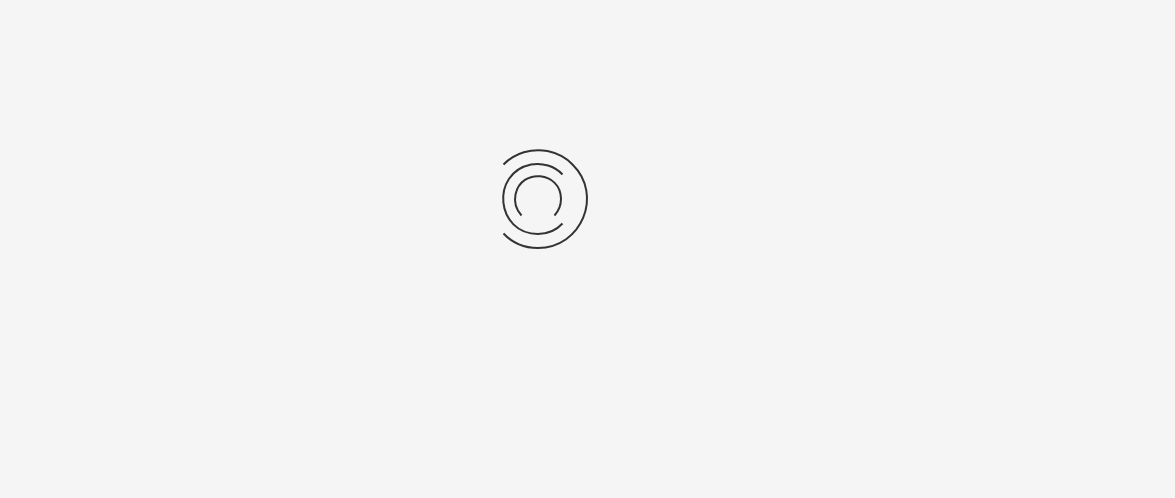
<!DOCTYPE html>
<meta charset="utf-8">
<style>body { margin: 0 } canvas { display: block }</style>
<canvas id="canvas" width="1175" height="498"></canvas>
<script>
window.onload = function () {
    const canvas = document.getElementById('canvas');
    const context = canvas.getContext('2d');
    context.miterLimit = 4;
    context.fontKerning = 'normal';

    context.fillStyle = 'rgb(245, 245, 245)';
    context.fillRect(0, 0, 1175, 498);
    context.beginPath();
    context.moveTo(503.5, 164.5);
    context.bezierCurveTo(515, 153, 531.5, 148, 547.5, 151);
    context.bezierCurveTo(557, 153, 566, 157.5, 572.5, 164.5);
    context.bezierCurveTo(603.5, 195, 581.5, 248, 538, 248);
    context.bezierCurveTo(525, 248, 512.5, 243, 503.5, 233.5);
    context.strokeStyle = 'rgb(51, 51, 51)';
    context.lineWidth = 2;
    context.stroke();
    context.beginPath();
    context.moveTo(562.5, 223.5);
    context.bezierCurveTo(556, 230.5, 547, 234, 538, 234);
    context.bezierCurveTo(496, 234, 490, 173, 531, 164.5);
    context.bezierCurveTo(542.5, 162.5, 554.5, 166, 562.5, 174.5);
    context.stroke();
    context.beginPath();
    context.moveTo(521.5, 215.5);
    context.bezierCurveTo(516.5, 210, 514, 202, 515.5, 194.5);
    context.bezierCurveTo(521, 167.5, 561, 171.5, 561, 199);
    context.bezierCurveTo(561, 205, 558.5, 211, 554.5, 215.5);
    context.stroke();
};
</script>
